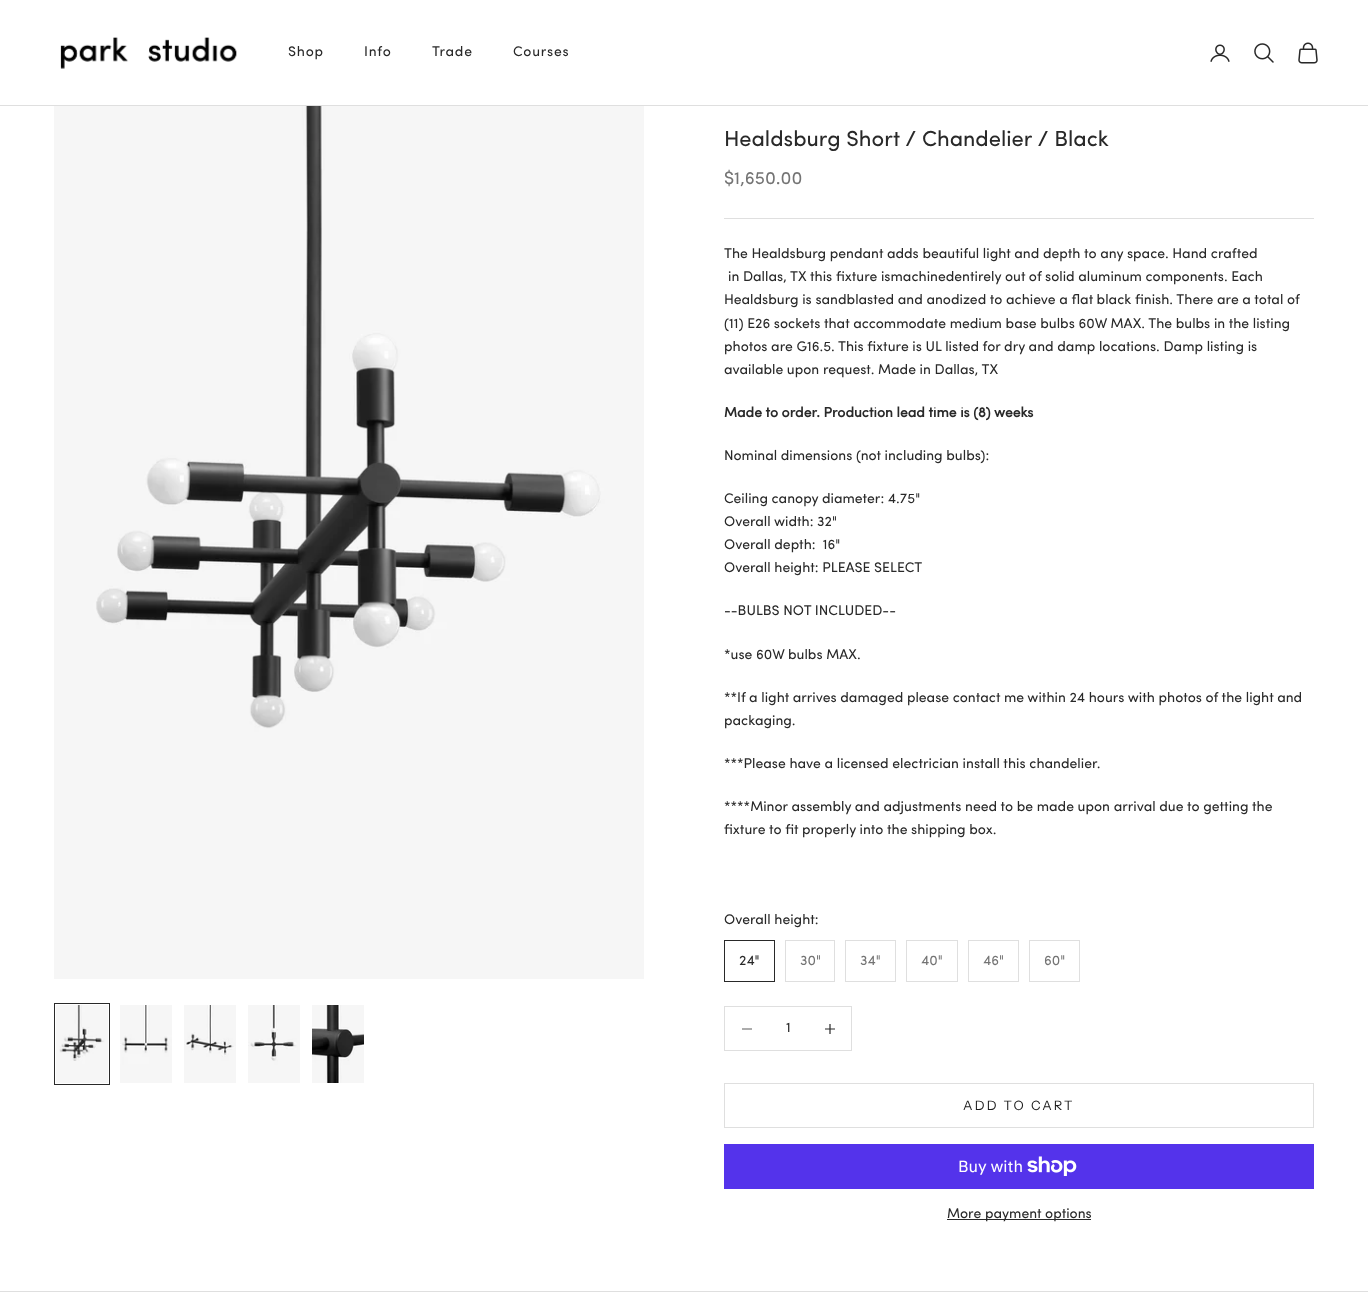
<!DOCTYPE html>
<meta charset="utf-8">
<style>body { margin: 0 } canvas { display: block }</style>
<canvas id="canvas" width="1368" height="1305"></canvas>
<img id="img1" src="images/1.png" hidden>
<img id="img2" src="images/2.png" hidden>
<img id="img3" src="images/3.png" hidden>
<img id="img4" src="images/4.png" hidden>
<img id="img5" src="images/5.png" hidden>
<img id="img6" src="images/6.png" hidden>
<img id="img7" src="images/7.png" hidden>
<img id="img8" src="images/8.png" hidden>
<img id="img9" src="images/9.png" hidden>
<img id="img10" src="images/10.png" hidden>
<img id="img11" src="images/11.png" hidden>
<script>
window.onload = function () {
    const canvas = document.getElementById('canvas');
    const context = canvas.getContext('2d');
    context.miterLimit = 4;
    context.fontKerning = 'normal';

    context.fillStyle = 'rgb(255, 255, 255)';
    context.fillRect(0, 0, 1368, 1305);
    context.fillStyle = 'rgb(223, 223, 223)';
    context.fillRect(0, 105, 1368, 1);
    context.drawImage(document.getElementById('img1'), 60, 37, 177, 32);
    context.drawImage(document.getElementById('img2'), 1210, 44, 20, 18);
    context.drawImage(document.getElementById('img3'), 1254, 43, 20, 20);
    context.drawImage(document.getElementById('img4'), 1298, 42, 20, 22);
    context.drawImage(document.getElementById('img5'), 54, 106, 590, 873);
    context.strokeStyle = 'rgb(41, 41, 41)';
    context.strokeRect(54.5, 1003.5, 55, 81);
    context.drawImage(document.getElementById('img6'), 56, 1005, 52, 78);
    context.drawImage(document.getElementById('img7'), 120, 1005, 52, 78);
    context.drawImage(document.getElementById('img8'), 184, 1005, 52, 78);
    context.drawImage(document.getElementById('img9'), 248, 1005, 52, 78);
    context.drawImage(document.getElementById('img10'), 312, 1005, 52, 78);
    context.fillRect(724, 218, 590, 1);
    context.strokeRect(724.5, 940.5, 50, 41);
    context.strokeStyle = 'rgb(223, 223, 223)';
    context.strokeRect(785.5, 940.5, 49, 41);
    context.strokeRect(845.5, 940.5, 50, 41);
    context.strokeRect(906.5, 940.5, 51, 41);
    context.strokeRect(968.5, 940.5, 50, 41);
    context.strokeRect(1029.5, 940.5, 50, 41);
    context.strokeRect(724.5, 1006.5, 127, 44);
    context.beginPath();
    context.moveTo(742, 1029);
    context.lineTo(752, 1029);
    context.strokeStyle = 'rgb(116, 116, 116)';
    context.lineWidth = 1.2;
    context.stroke();
    context.beginPath();
    context.moveTo(830, 1024);
    context.lineTo(830, 1034);
    context.moveTo(825, 1029);
    context.lineTo(835, 1029);
    context.strokeStyle = 'rgb(41, 41, 41)';
    context.stroke();
    context.strokeStyle = 'rgb(223, 223, 223)';
    context.lineWidth = 1;
    context.strokeRect(724.5, 1083.5, 589, 44);
    context.fillStyle = 'rgb(84, 51, 235)';
    context.fillRect(724, 1144, 590, 45);
    context.drawImage(document.getElementById('img11'), 1027, 1156, 50, 20);
    context.fillStyle = 'rgb(41, 41, 41)';
    context.fillRect(947, 1219, 144, 1);
    context.fillStyle = 'rgb(223, 223, 223)';
    context.fillRect(0, 1291, 1368, 1);
    context.letterSpacing = '0.75px';
    context.font = '14px Sofia';
    context.fillStyle = 'rgb(41, 41, 41)';
    context.fillText('Shop', 288, 56);
    context.fillText('Info', 364, 56);
    context.fillText('Trade', 432, 56);
    context.fillText('Courses', 513, 56);
    context.letterSpacing = '0px';
    context.font = '21.9px Sofia';
    context.fillText('Healdsburg Short / Chandelier / Black', 724, 146);
    context.font = '18px Sofia';
    context.fillStyle = 'rgb(116, 116, 116)';
    context.fillText('$1,650.00', 724, 184);
    context.font = '14px Sofia';
    context.fillStyle = 'rgb(41, 41, 41)';
    context.fillText('The Healdsburg pendant adds beautiful light and depth to any space. Hand crafted', 724, 258);
    context.fillText('in Dallas, TX this fixture ismachinedentirely out of solid aluminum components. Each', 728, 281);
    context.fillText('Healdsburg is sandblasted and anodized to achieve a flat black finish. There are a total of', 724, 304);
    context.fillText('(11) E26 sockets that accommodate medium base bulbs 60W MAX. The bulbs in the listing', 724, 328);
    context.fillText('photos are G16.5. This fixture is UL listed for dry and damp locations. Damp listing is', 724, 351);
    context.fillText('available upon request. Made in Dallas, TX', 724, 374);
    context.font = 'bold 14px Sofia';
    context.fillText('Made to order. Production lead time is (8) weeks', 724, 417);
    context.font = '14px Sofia';
    context.fillText('Nominal dimensions (not including bulbs):', 724, 460);
    context.fillText('Ceiling canopy diameter: 4.75"', 724, 503);
    context.fillText('Overall width: 32"', 724, 526);
    context.fillText('Overall depth:  16"', 724, 549);
    context.fillText('Overall height: PLEASE SELECT', 724, 572);
    context.fillText('--BULBS NOT INCLUDED--', 724, 615);
    context.fillText('*use 60W bulbs MAX.', 724, 659);
    context.fillText('**If a light arrives damaged please contact me within 24 hours with photos of the light and', 724, 702);
    context.fillText('packaging.', 724, 725);
    context.fillText('***Please have a licensed electrician install this chandelier.', 724, 768);
    context.fillText('****Minor assembly and adjustments need to be made upon arrival due to getting the', 724, 811);
    context.fillText('fixture to fit properly into the shipping box.', 724, 834);
    context.fillText('Overall height:', 724, 924);
    context.fillText('24"', 739, 965);
    context.fillStyle = 'rgb(116, 116, 116)';
    context.fillText('30"', 800, 965);
    context.fillText('34"', 860, 965);
    context.fillText('40"', 921, 965);
    context.fillText('46"', 983, 965);
    context.fillText('60"', 1044, 965);
    context.fillStyle = 'rgb(41, 41, 41)';
    context.fillText('1', 786, 1032);
    context.letterSpacing = '2.25px';
    context.font = '13px Instrument Sans';
    context.fillStyle = 'rgb(28, 28, 28)';
    context.fillText('ADD TO CART', 963, 1110);
    context.letterSpacing = '0px';
    context.font = '16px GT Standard';
    context.fillStyle = 'rgb(255, 255, 255)';
    context.fillText('Buy with', 958, 1172);
    context.font = '14px Sofia';
    context.fillStyle = 'rgb(41, 41, 41)';
    context.fillText('More payment options', 947, 1218);
};
</script>
